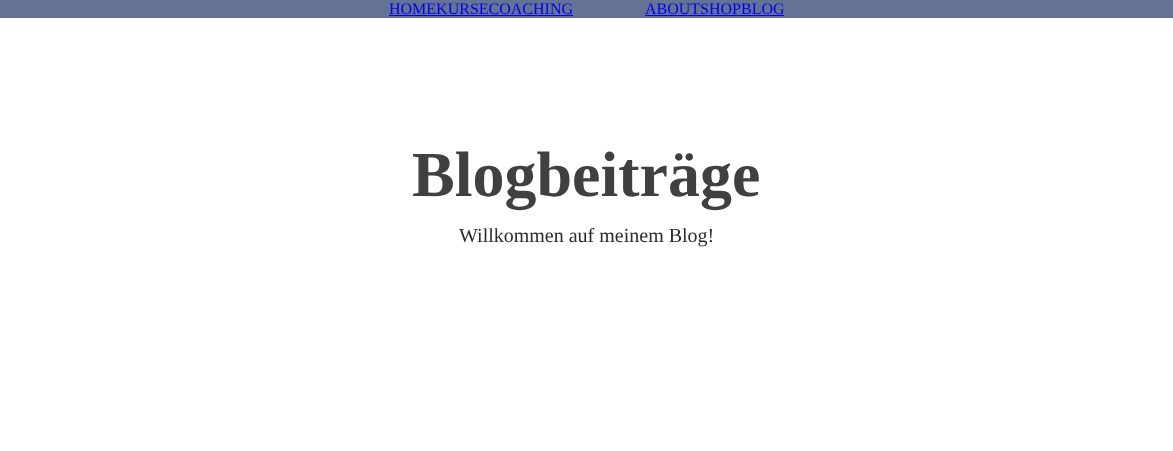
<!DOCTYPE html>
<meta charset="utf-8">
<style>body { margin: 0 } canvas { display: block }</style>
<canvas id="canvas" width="1173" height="451"></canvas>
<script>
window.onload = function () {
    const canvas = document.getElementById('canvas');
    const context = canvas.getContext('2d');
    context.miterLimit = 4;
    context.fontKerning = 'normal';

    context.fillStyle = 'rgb(255, 255, 255)';
    context.fillRect(0, 0, 1173, 451);
    context.fillStyle = 'rgb(100, 114, 149)';
    context.fillRect(0, 0, 1173, 18);
    context.fillStyle = 'rgb(0, 0, 238)';
    context.fillRect(389, 15, 184, 1);
    context.fillRect(645, 15, 139, 1);
    context.font = '16px Liberation Serif';
    context.fillText('HOMEKURSECOACHING', 389, 14);
    context.fillText('ABOUTSHOPBLOG', 645, 14);
    context.font = 'bold 64px Liberation Serif';
    context.fillStyle = 'rgb(64, 64, 64)';
    context.fillText('Blogbeiträge', 412, 196);
    context.font = '20px Liberation Serif';
    context.fillStyle = 'rgb(43, 44, 40)';
    context.fillText('Willkommen auf meinem Blog!', 459, 242);
};
</script>
